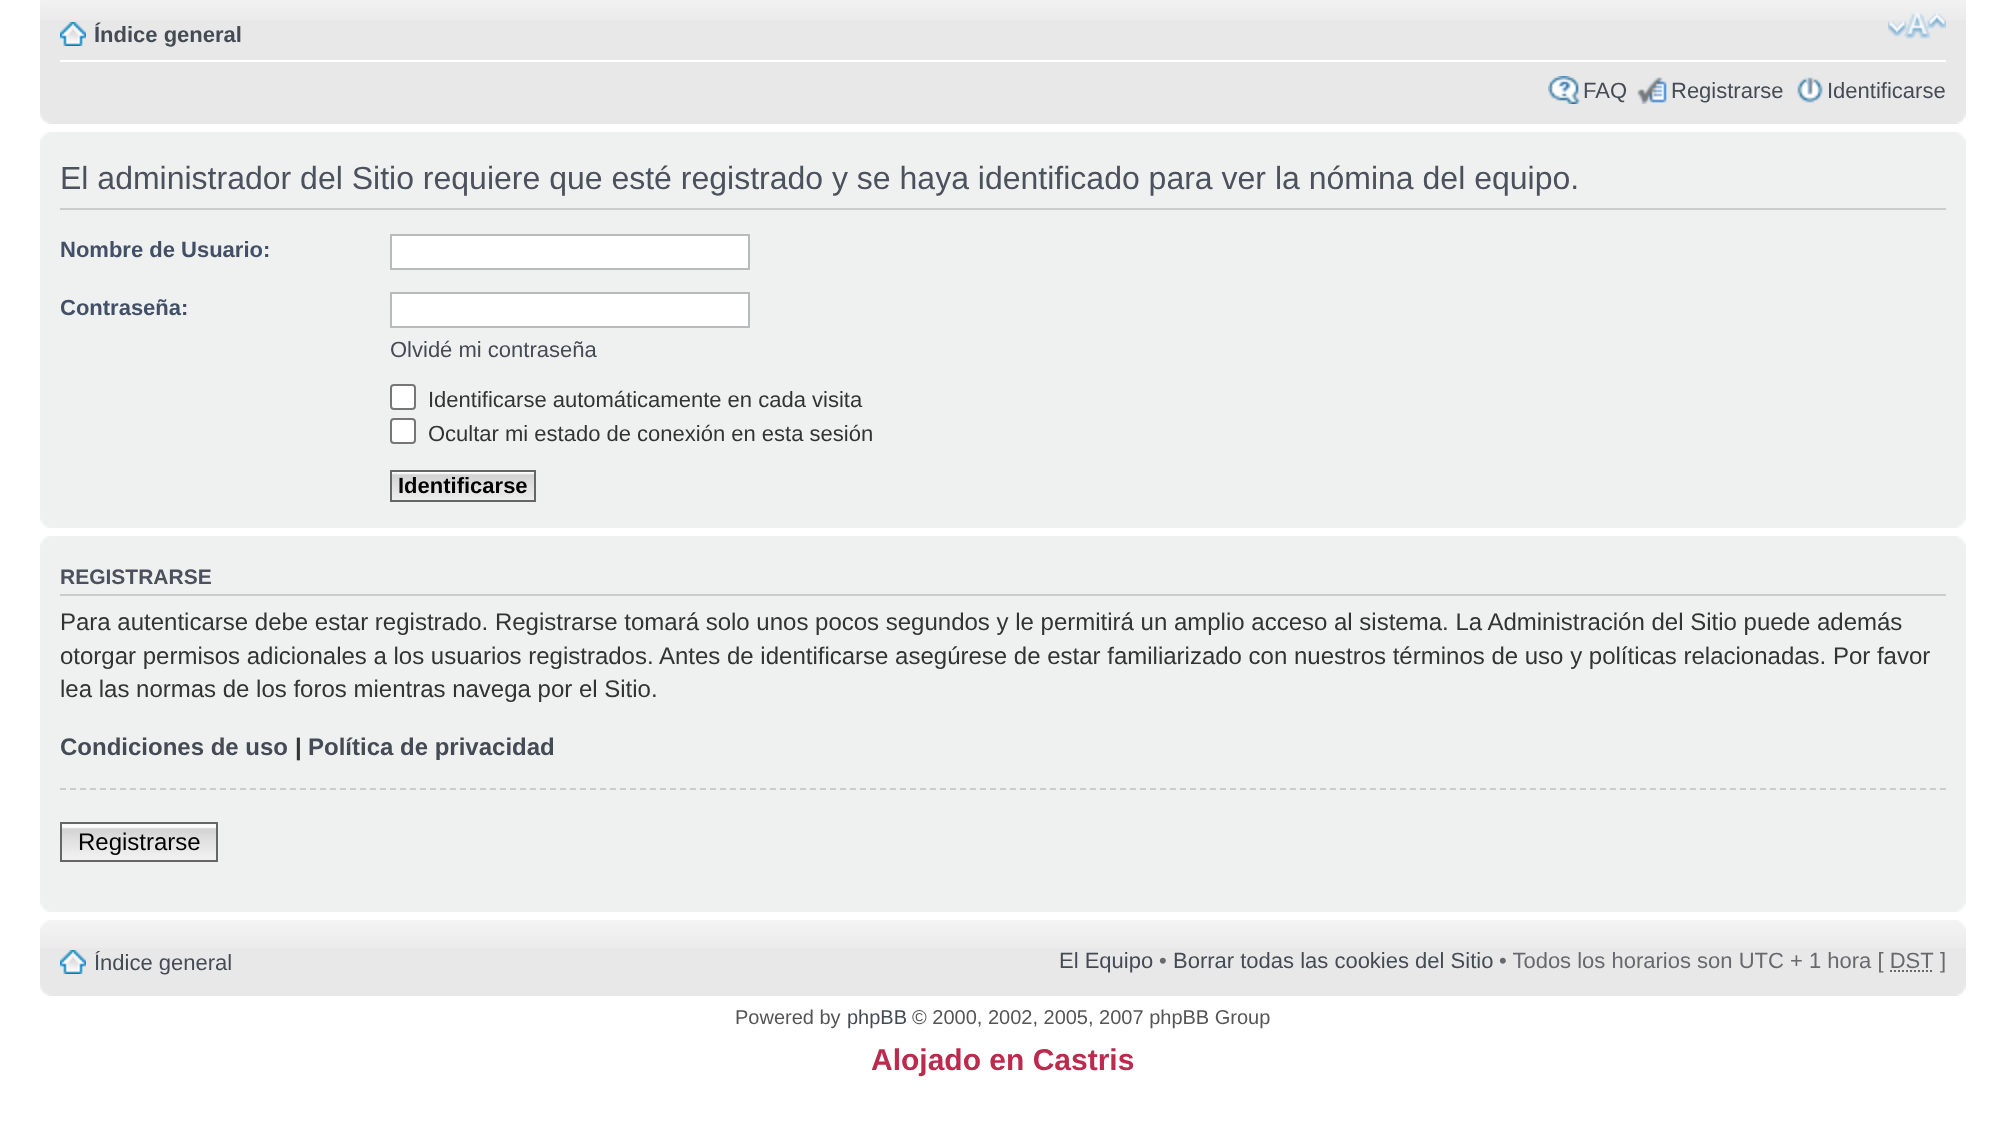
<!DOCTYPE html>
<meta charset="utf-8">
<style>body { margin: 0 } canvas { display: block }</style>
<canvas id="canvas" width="2005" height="1130"></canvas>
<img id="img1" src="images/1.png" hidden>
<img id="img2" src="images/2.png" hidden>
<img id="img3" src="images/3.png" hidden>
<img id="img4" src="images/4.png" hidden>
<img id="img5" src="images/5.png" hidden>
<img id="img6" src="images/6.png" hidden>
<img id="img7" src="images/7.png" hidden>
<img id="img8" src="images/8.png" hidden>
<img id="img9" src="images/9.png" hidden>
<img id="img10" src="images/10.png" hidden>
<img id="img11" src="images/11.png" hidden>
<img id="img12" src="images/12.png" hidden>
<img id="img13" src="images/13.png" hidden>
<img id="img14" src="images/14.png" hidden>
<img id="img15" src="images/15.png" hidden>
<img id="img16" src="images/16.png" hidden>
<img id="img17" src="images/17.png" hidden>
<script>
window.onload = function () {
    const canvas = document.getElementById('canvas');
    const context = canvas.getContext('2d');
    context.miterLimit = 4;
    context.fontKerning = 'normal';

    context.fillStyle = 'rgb(255, 255, 255)';
    context.fillRect(0, 0, 2005, 1130);
    context.fillStyle = 'rgb(232, 232, 232)';
    context.fillRect(40, 0, 1926, 124);
    context.drawImage(document.getElementById('img1'), 40, 0, 1926, 20);
    context.fillStyle = 'rgb(246, 246, 246)';
    context.fillRect(40, 0, 1, 1);
    context.fillRect(1965, 0, 1, 1);
    context.fillStyle = 'rgb(255, 255, 255)';
    context.fillRect(60, 60, 1886, 2);
    context.drawImage(document.getElementById('img2'), 60, 22, 26, 24);
    context.drawImage(document.getElementById('img3'), 1888, 13, 58, 26);
    context.drawImage(document.getElementById('img4'), 1548, 76, 32, 28);
    context.drawImage(document.getElementById('img5'), 1637, 77, 30, 27);
    context.drawImage(document.getElementById('img6'), 1797, 77, 26, 26);
    context.drawImage(document.getElementById('img7'), 40, 114, 10, 10);
    context.drawImage(document.getElementById('img8'), 1956, 114, 10, 10);
    context.fillStyle = 'rgb(239, 240, 240)';
    context.fillRect(40, 132, 1926, 396);
    context.drawImage(document.getElementById('img9'), 40, 132, 9, 9);
    context.drawImage(document.getElementById('img10'), 1957, 132, 9, 9);
    context.fillStyle = 'rgb(204, 204, 204)';
    context.fillRect(60, 208, 1886, 2);
    context.fillStyle = 'rgb(255, 255, 255)';
    context.beginPath();
    context.rect(391, 235, 358, 34);
    context.fill();
    context.strokeStyle = 'rgb(185, 186, 187)';
    context.lineWidth = 2;
    context.stroke();
    context.beginPath();
    context.rect(391, 293, 358, 34);
    context.fill();
    context.stroke();
    context.beginPath();
    context.roundRect(391, 385, 24, 24, 3);
    context.fill();
    context.strokeStyle = 'rgb(118, 118, 118)';
    context.stroke();
    context.beginPath();
    context.roundRect(391, 419, 24, 24, 3);
    context.fill();
    context.stroke();
    context.drawImage(document.getElementById('img11'), 392, 472, 142, 28);
    context.strokeStyle = 'rgb(102, 102, 102)';
    context.strokeRect(391, 471, 144, 30);
    context.drawImage(document.getElementById('img12'), 40, 519, 9, 9);
    context.drawImage(document.getElementById('img13'), 1957, 519, 9, 9);
    context.fillStyle = 'rgb(239, 240, 240)';
    context.fillRect(40, 536, 1926, 376);
    context.drawImage(document.getElementById('img9'), 40, 536, 9, 9);
    context.drawImage(document.getElementById('img10'), 1957, 536, 9, 9);
    context.fillStyle = 'rgb(204, 204, 204)';
    context.fillRect(60, 594, 1886, 2);
    context.beginPath();
    context.moveTo(60, 789);
    context.lineTo(1946, 789);
    context.strokeStyle = 'rgb(204, 204, 204)';
    context.setLineDash([6, 4]);
    context.stroke();
    context.drawImage(document.getElementById('img14'), 62, 826, 154, 34);
    context.fillStyle = 'rgb(250, 250, 250)';
    context.fillRect(62, 824, 154, 2);
    context.strokeStyle = 'rgb(102, 102, 102)';
    context.setLineDash([]);
    context.strokeRect(61, 823, 156, 38);
    context.drawImage(document.getElementById('img12'), 40, 903, 9, 9);
    context.drawImage(document.getElementById('img13'), 1957, 903, 9, 9);
    context.fillStyle = 'rgb(232, 232, 232)';
    context.fillRect(40, 920, 1926, 76);
    context.drawImage(document.getElementById('img15'), 40, 920, 1926, 28);
    context.drawImage(document.getElementById('img16'), 40, 920, 8, 9);
    context.drawImage(document.getElementById('img17'), 1958, 920, 8, 9);
    context.drawImage(document.getElementById('img2'), 60, 950, 26, 24);
    context.beginPath();
    context.moveTo(1890, 971);
    context.lineTo(1934, 971);
    context.strokeStyle = 'rgb(104, 105, 109)';
    context.setLineDash([2, 2]);
    context.stroke();
    context.drawImage(document.getElementById('img7'), 40, 986, 10, 10);
    context.drawImage(document.getElementById('img8'), 1956, 986, 10, 10);
    context.font = 'bold 22px Liberation Sans';
    context.fillStyle = 'rgb(69, 75, 84)';
    context.fillText('Índice general', 94, 42);
    context.font = '22px Liberation Sans';
    context.fillText('FAQ', 1583, 98);
    context.fillText('Registrarse', 1671, 98);
    context.fillText('Identificarse', 1827, 98);
    context.font = '32px Liberation Sans';
    context.fillStyle = 'rgb(76, 82, 93)';
    context.fillText('El administrador del Sitio requiere que esté registrado y se haya identificado para ver la nómina del equipo.', 60, 189);
    context.font = 'bold 22px Liberation Sans';
    context.fillStyle = 'rgb(66, 80, 103)';
    context.fillText('Nombre de Usuario:', 60, 257);
    context.fillText('Contraseña:', 60, 315);
    context.font = '22px Liberation Sans';
    context.fillStyle = 'rgb(69, 75, 84)';
    context.fillText('Olvidé mi contraseña', 390, 357);
    context.fillStyle = 'rgb(51, 51, 51)';
    context.fillText('Identificarse automáticamente en cada visita', 428, 407);
    context.fillText('Ocultar mi estado de conexión en esta sesión', 428, 441);
    context.font = 'bold 22px Liberation Sans';
    context.fillStyle = 'rgb(0, 0, 0)';
    context.fillText('Identificarse', 398, 493);
    context.font = 'bold 21px Liberation Sans';
    context.fillStyle = 'rgb(76, 82, 93)';
    context.fillText('REGISTRARSE', 60, 584);
    context.font = '24px Liberation Sans';
    context.fillStyle = 'rgb(51, 51, 51)';
    context.fillText('Para autenticarse debe estar registrado. Registrarse tomará solo unos pocos segundos y le permitirá un amplio acceso al sistema. La Administración del Sitio puede además', 60, 630);
    context.fillText('otorgar permisos adicionales a los usuarios registrados. Antes de identificarse asegúrese de estar familiarizado con nuestros términos de uso y políticas relacionadas. Por favor', 60, 664);
    context.fillText('lea las normas de los foros mientras navega por el Sitio.', 60, 697);
    context.font = 'bold 24px Liberation Sans';
    context.fillStyle = 'rgb(69, 75, 84)';
    context.fillText('Condiciones de uso', 60, 755);
    context.fillStyle = 'rgb(51, 51, 51)';
    context.fillText('|', 295, 755);
    context.fillStyle = 'rgb(69, 75, 84)';
    context.fillText('Política de privacidad', 308, 755);
    context.font = '24px Liberation Sans';
    context.fillStyle = 'rgb(0, 0, 0)';
    context.fillText('Registrarse', 78, 850);
    context.font = '22px Liberation Sans';
    context.fillStyle = 'rgb(69, 75, 84)';
    context.fillText('Índice general', 94, 970);
    context.fillText('El Equipo', 1059, 968);
    context.fillStyle = 'rgb(104, 105, 109)';
    context.fillText('•', 1159, 968);
    context.fillStyle = 'rgb(69, 75, 84)';
    context.fillText('Borrar todas las cookies del Sitio', 1173, 968);
    context.fillStyle = 'rgb(104, 105, 109)';
    context.fillText('• Todos los horarios son UTC + 1 hora [ DST', 1499, 968);
    context.fillText(']', 1940, 968);
    context.font = '20px Liberation Sans';
    context.fillStyle = 'rgb(85, 85, 85)';
    context.fillText('Powered by', 735, 1024);
    context.fillStyle = 'rgb(69, 75, 84)';
    context.fillText('phpBB', 847, 1024);
    context.fillStyle = 'rgb(85, 85, 85)';
    context.fillText('© 2000, 2002, 2005, 2007 phpBB Group', 912, 1024);
    context.font = 'bold 30px Liberation Sans';
    context.fillStyle = 'rgb(188, 42, 77)';
    context.fillText('Alojado en Castris', 871, 1070);
};
</script>
